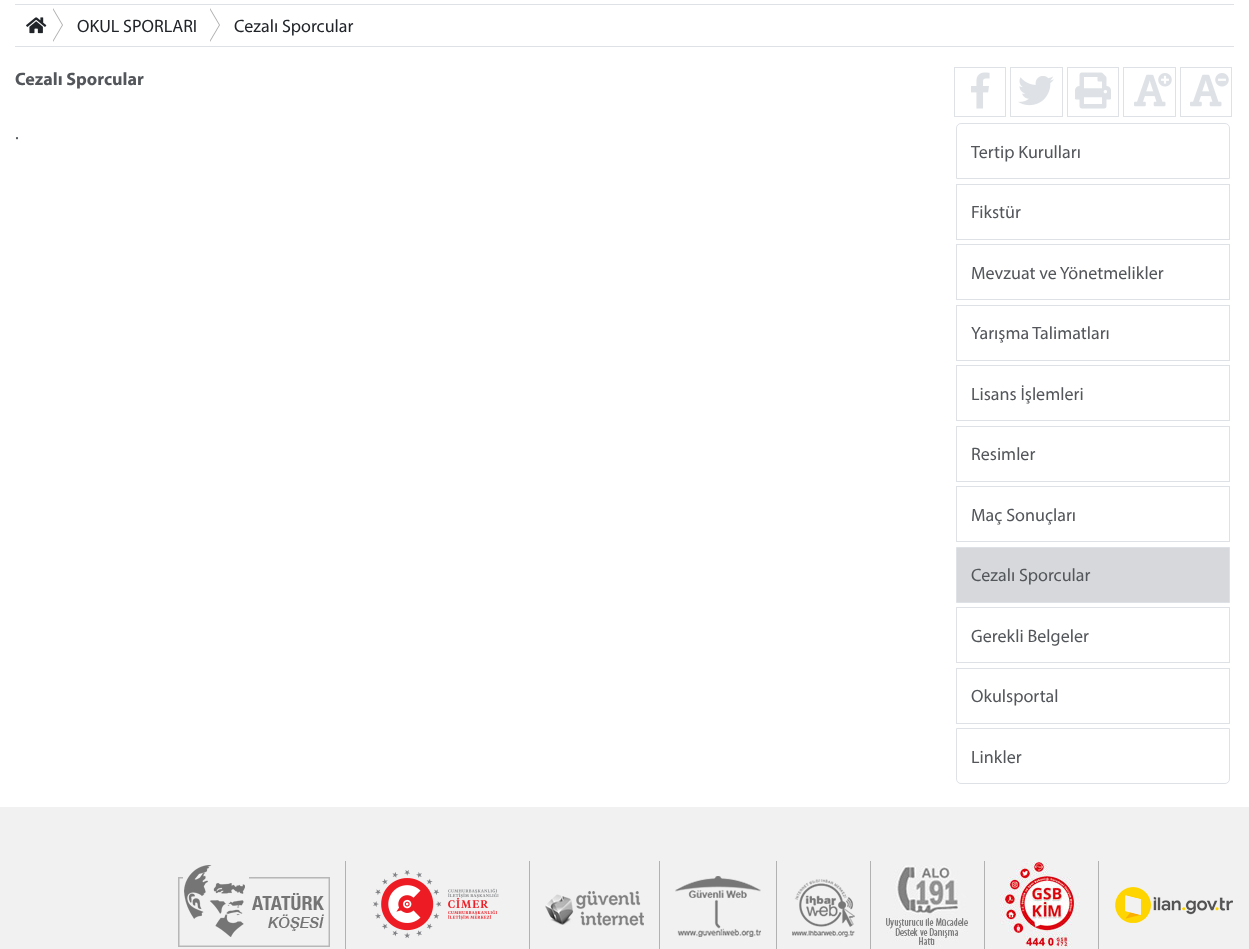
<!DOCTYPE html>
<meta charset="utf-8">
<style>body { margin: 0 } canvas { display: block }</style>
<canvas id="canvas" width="1249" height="949"></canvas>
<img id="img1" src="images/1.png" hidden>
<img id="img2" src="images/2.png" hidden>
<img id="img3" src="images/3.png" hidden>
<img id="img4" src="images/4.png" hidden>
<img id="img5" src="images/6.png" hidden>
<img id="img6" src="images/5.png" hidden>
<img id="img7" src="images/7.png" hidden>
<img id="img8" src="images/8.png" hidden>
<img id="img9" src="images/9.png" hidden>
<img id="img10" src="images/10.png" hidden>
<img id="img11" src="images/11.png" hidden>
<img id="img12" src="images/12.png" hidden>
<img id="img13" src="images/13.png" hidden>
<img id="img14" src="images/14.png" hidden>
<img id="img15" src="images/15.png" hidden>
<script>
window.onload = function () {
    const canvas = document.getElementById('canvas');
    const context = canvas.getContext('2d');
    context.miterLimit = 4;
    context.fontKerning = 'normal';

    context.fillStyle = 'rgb(241, 241, 241)';
    context.fillRect(0, 0, 1249, 949);
    context.fillStyle = 'rgb(255, 255, 255)';
    context.fillRect(0, 0, 1249, 807);
    context.fillStyle = 'rgb(222, 226, 230)';
    context.fillRect(15, 4, 1219, 1);
    context.fillRect(15, 46, 1219, 1);
    context.fillStyle = 'rgb(173, 173, 173)';
    context.beginPath();
    context.moveTo(53, 42);
    context.lineTo(53, 8);
    context.lineTo(63, 25);
    context.closePath();
    context.fill();
    context.fillStyle = 'rgb(255, 255, 255)';
    context.beginPath();
    context.moveTo(52, 42);
    context.lineTo(52, 8);
    context.lineTo(62, 25);
    context.closePath();
    context.fill();
    context.drawImage(document.getElementById('img1'), 26, 17, 21, 17);
    context.fillStyle = 'rgb(173, 173, 173)';
    context.beginPath();
    context.moveTo(210, 42);
    context.lineTo(210, 8);
    context.lineTo(220, 25);
    context.closePath();
    context.fill();
    context.fillStyle = 'rgb(255, 255, 255)';
    context.beginPath();
    context.moveTo(209, 42);
    context.lineTo(209, 8);
    context.lineTo(219, 25);
    context.closePath();
    context.fill();
    context.strokeStyle = 'rgb(222, 226, 230)';
    context.strokeRect(954.5, 67.5, 51, 49);
    context.drawImage(document.getElementById('img2'), 971, 72, 19, 37);
    context.strokeRect(1010.5, 67.5, 52, 49);
    context.drawImage(document.getElementById('img3'), 1018, 76, 36, 30);
    context.strokeRect(1067.5, 67.5, 51, 49);
    context.drawImage(document.getElementById('img4'), 1075, 72, 36, 37);
    context.strokeRect(1123.5, 67.5, 52, 49);
    context.drawImage(document.getElementById('img5'), 1134, 74, 32, 33);
    context.drawImage(document.getElementById('img6'), 1158, 73, 14, 14);
    context.strokeRect(1180.5, 67.5, 51, 49);
    context.drawImage(document.getElementById('img5'), 1190, 74, 32, 33);
    context.drawImage(document.getElementById('img7'), 1215, 73, 14, 14);
    context.beginPath();
    context.roundRect(956.5, 123.5, 273, 55, [4.5, 4.5, 0, 0]);
    context.stroke();
    context.strokeRect(956.5, 184.5, 273, 55);
    context.strokeRect(956.5, 244.5, 273, 55);
    context.strokeRect(956.5, 305.5, 273, 55);
    context.strokeRect(956.5, 365.5, 273, 55);
    context.strokeRect(956.5, 426.5, 273, 55);
    context.strokeRect(956.5, 486.5, 273, 55);
    context.fillStyle = 'rgb(214, 216, 219)';
    context.beginPath();
    context.rect(956.5, 547.5, 273, 55);
    context.fill();
    context.stroke();
    context.strokeRect(956.5, 607.5, 273, 55);
    context.strokeRect(956.5, 668.5, 273, 55);
    context.beginPath();
    context.roundRect(956.5, 728.5, 273, 55, [0, 0, 4.5, 4.5]);
    context.stroke();
    context.drawImage(document.getElementById('img8'), 178, 865, 152, 82);
    context.fillStyle = 'rgb(178, 178, 178)';
    context.fillRect(345, 861, 1, 88);
    context.drawImage(document.getElementById('img9'), 373, 870, 126, 68);
    context.fillRect(529, 861, 1, 88);
    context.drawImage(document.getElementById('img10'), 545, 891, 99, 35);
    context.fillRect(659, 861, 1, 88);
    context.drawImage(document.getElementById('img11'), 675, 876, 86, 61);
    context.fillRect(776, 861, 1, 88);
    context.drawImage(document.getElementById('img12'), 792, 879, 63, 58);
    context.fillRect(870, 861, 1, 88);
    context.drawImage(document.getElementById('img13'), 886, 865, 82, 82);
    context.fillRect(984, 861, 1, 88);
    context.drawImage(document.getElementById('img14'), 1000, 861, 80, 86);
    context.fillRect(1098, 861, 1, 88);
    context.drawImage(document.getElementById('img15'), 1115, 887, 118, 36);
    context.font = '18px Myriad';
    context.fillStyle = 'rgb(33, 37, 41)';
    context.fillText('OKUL SPORLARI', 77, 32);
    context.fillText('Cezalı Sporcular', 234, 32);
    context.font = 'bold 18px Myriad';
    context.fillStyle = 'rgb(83, 86, 90)';
    context.fillText('Cezalı Sporcular', 15, 85);
    context.font = '18px Myriad';
    context.fillText('.', 15, 139);
    context.fillText('Tertip Kurulları', 971, 158);
    context.fillText('Fikstür', 971, 218);
    context.fillText('Mevzuat ve Yönetmelikler', 971, 279);
    context.fillText('Yarışma Talimatları', 971, 339);
    context.fillText('Lisans İşlemleri', 971, 400);
    context.fillText('Resimler', 971, 460);
    context.fillText('Maç Sonuçları', 971, 521);
    context.fillText('Cezalı Sporcular', 971, 581);
    context.fillText('Gerekli Belgeler', 971, 642);
    context.fillText('Okulsportal', 971, 702);
    context.fillText('Linkler', 971, 763);
};
</script>
